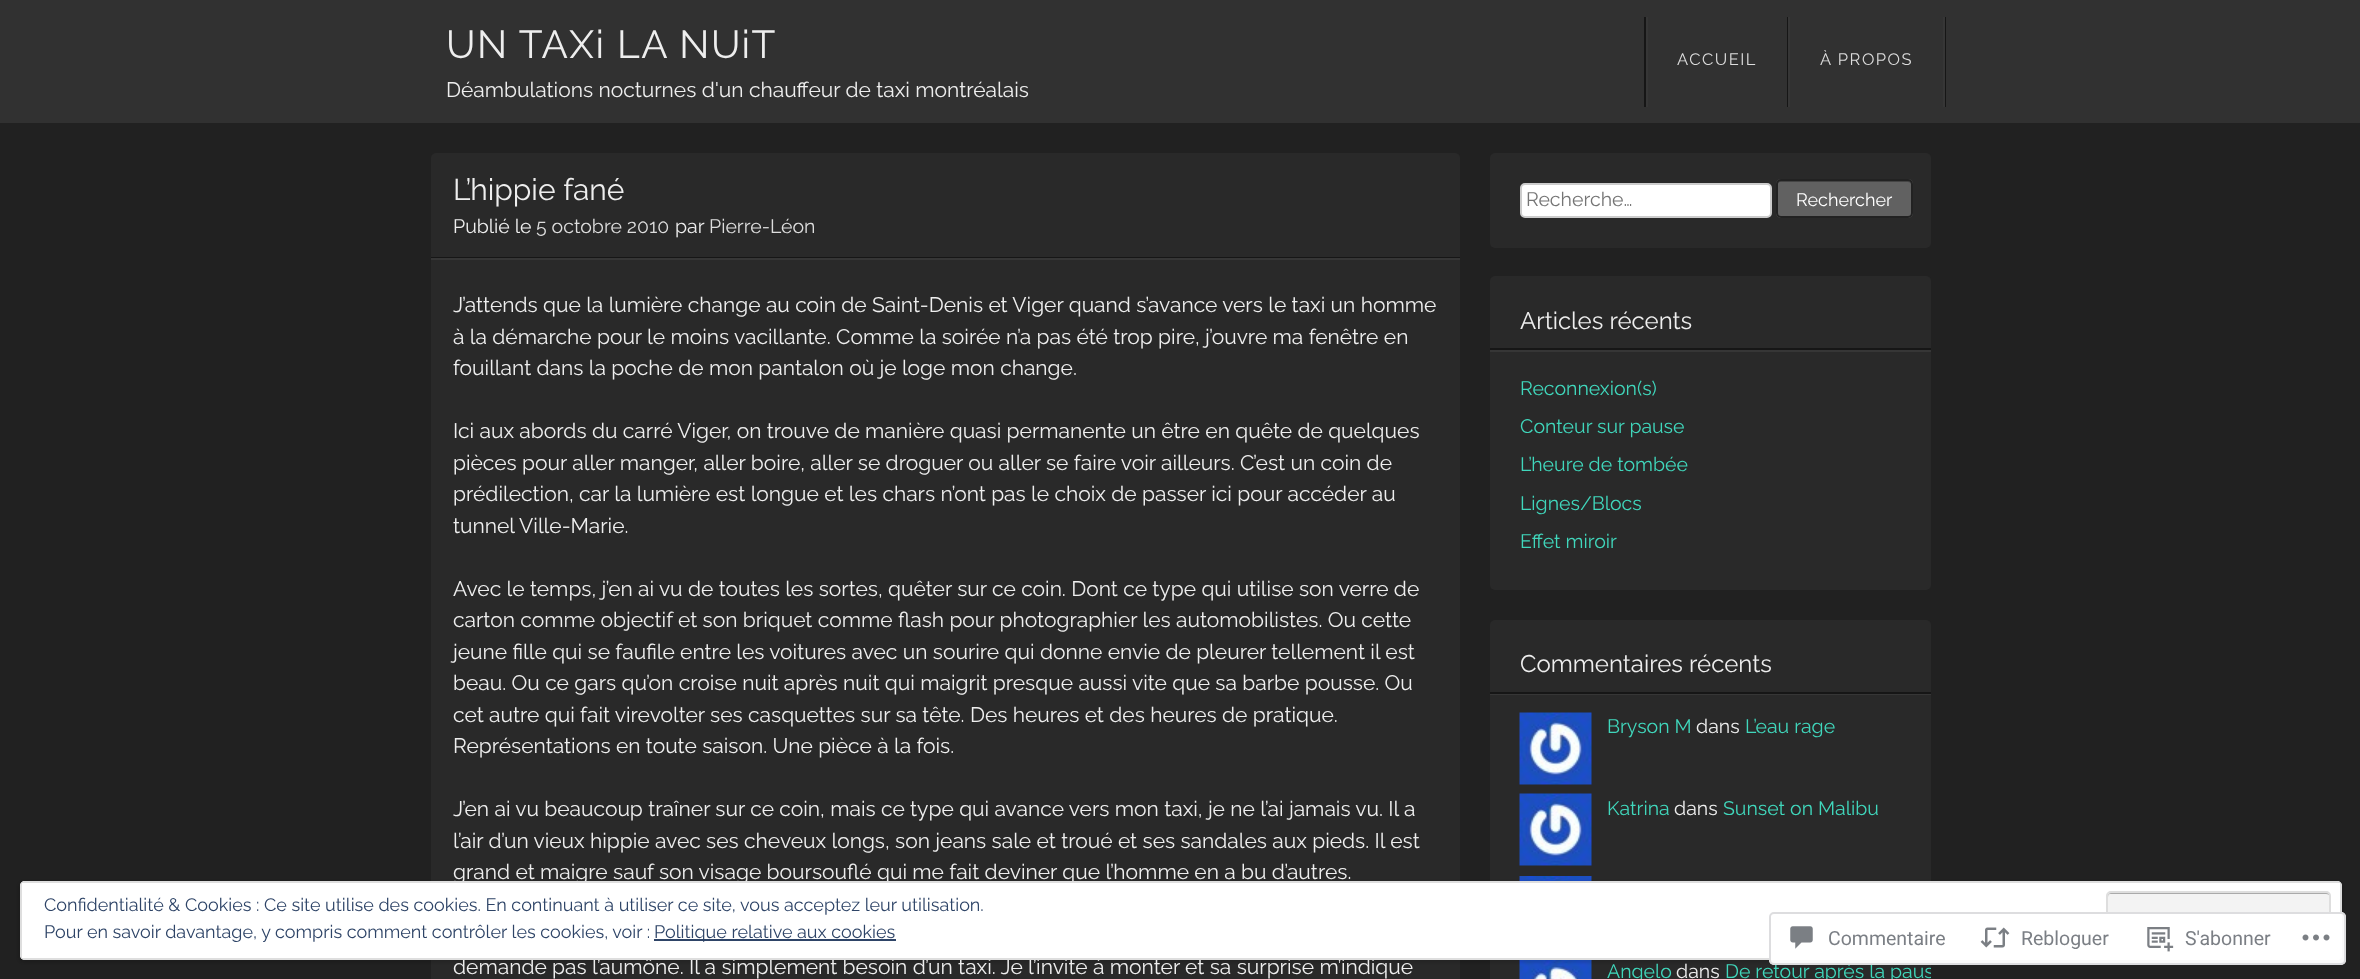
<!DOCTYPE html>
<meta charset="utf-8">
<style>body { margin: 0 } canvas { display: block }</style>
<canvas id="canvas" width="2360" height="979"></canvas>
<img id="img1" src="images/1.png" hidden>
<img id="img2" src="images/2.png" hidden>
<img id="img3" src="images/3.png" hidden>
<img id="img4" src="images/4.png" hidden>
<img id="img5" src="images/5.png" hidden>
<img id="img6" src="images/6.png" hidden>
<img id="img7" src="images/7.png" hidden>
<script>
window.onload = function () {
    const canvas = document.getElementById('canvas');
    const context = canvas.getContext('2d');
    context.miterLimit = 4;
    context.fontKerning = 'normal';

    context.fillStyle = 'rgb(33, 33, 33)';
    context.fillRect(0, 0, 2360, 979);
    context.fillStyle = 'rgb(49, 49, 49)';
    context.fillRect(0, 0, 2360, 123);
    context.fillStyle = 'rgb(22, 22, 22)';
    context.fillRect(1945, 17, 1, 90);
    context.fillRect(1644, 17, 2, 90);
    context.fillStyle = 'rgb(54, 54, 54)';
    context.fillRect(1646, 17, 2, 90);
    context.fillStyle = 'rgb(22, 22, 22)';
    context.fillRect(1787, 17, 1, 90);
    context.fillStyle = 'rgb(54, 54, 54)';
    context.fillRect(1943, 17, 2, 90);
    context.fillRect(1788, 17, 2, 90);
    context.fillStyle = 'rgb(41, 41, 41)';
    context.beginPath();
    context.roundRect(431, 153, 1029, 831, 5);
    context.fill();
    context.fillStyle = 'rgb(22, 22, 22)';
    context.fillRect(431, 257, 1029, 1);
    context.fillStyle = 'rgb(54, 54, 54)';
    context.fillRect(431, 258, 1029, 2);
    context.fillStyle = 'rgb(41, 41, 41)';
    context.beginPath();
    context.roundRect(1490, 153, 441, 95, 5);
    context.fill();
    context.fillStyle = 'rgb(255, 255, 255)';
    context.beginPath();
    context.roundRect(1521, 184, 250, 33, 4);
    context.fill();
    context.strokeStyle = 'rgb(204, 204, 204)';
    context.lineWidth = 2;
    context.stroke();
    context.fillStyle = 'rgb(97, 97, 97)';
    context.beginPath();
    context.roundRect(1776, 179, 137, 39, 5);
    context.fill();
    context.fillStyle = 'rgb(68, 68, 68)';
    context.beginPath();
    context.moveTo(1780, 182);
    context.lineTo(1908, 182);
    context.bezierCurveTo(1910, 182, 1911, 183, 1911, 184);
    context.bezierCurveTo(1911, 182, 1911, 180, 1909, 180);
    context.lineTo(1780, 180);
    context.bezierCurveTo(1778, 180, 1778, 182, 1778, 184);
    context.bezierCurveTo(1778, 183, 1779, 182, 1780, 182);
    context.closePath();
    context.fill();
    context.beginPath();
    context.roundRect(1777, 180, 135, 37, 4);
    context.strokeStyle = 'rgb(34, 34, 34)';
    context.stroke();
    context.fillStyle = 'rgb(41, 41, 41)';
    context.beginPath();
    context.roundRect(1490, 276, 441, 314, 5);
    context.fill();
    context.fillStyle = 'rgb(54, 54, 54)';
    context.fillRect(1490, 350, 441, 2);
    context.fillStyle = 'rgb(22, 22, 22)';
    context.fillRect(1490, 348, 441, 2);
    context.fillStyle = 'rgb(41, 41, 41)';
    context.beginPath();
    context.roundRect(1490, 620, 441, 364, 5);
    context.fill();
    context.fillStyle = 'rgb(54, 54, 54)';
    context.fillRect(1490, 694, 441, 1);
    context.fillStyle = 'rgb(22, 22, 22)';
    context.fillRect(1490, 692, 441, 2);
    context.drawImage(document.getElementById('img1'), 1519, 712, 73, 73);
    context.drawImage(document.getElementById('img1'), 1519, 793, 73, 73);
    context.drawImage(document.getElementById('img2'), 1519, 876, 73, 5);
    context.drawImage(document.getElementById('img3'), 1519, 960, 73, 19);
    context.fillStyle = 'rgba(0, 0, 0, 0.1)';
    context.filter = 'blur(1px)';
    context.beginPath();
    context.roundRect(18, 881, 2325, 82, 6);
    context.fill();
    context.filter = 'none';
    context.letterSpacing = '1.5px';
    context.font = '39px Raleway';
    context.fillStyle = 'rgb(238, 238, 238)';
    context.fillText('UN TAXi LA NUiT', 446, 58);
    context.letterSpacing = '0px';
    context.font = '21px Raleway';
    context.fillText('Déambulations nocturnes d\'un chauffeur de taxi montréalais', 446, 97);
    context.letterSpacing = '1.5px';
    context.font = '16.5px Raleway';
    context.fillStyle = 'rgb(221, 221, 221)';
    context.fillText('ACCUEIL', 1677, 65);
    context.fillText('À PROPOS', 1820, 65);
    context.letterSpacing = '0px';
    context.font = '30px Raleway';
    context.fillStyle = 'rgb(238, 238, 238)';
    context.fillText('L’hippie fané', 453, 200);
    context.font = '19.5px Raleway';
    context.fillText('Publié le', 453, 233);
    context.fillStyle = 'rgb(221, 221, 221)';
    context.fillText('5 octobre 2010', 536, 233);
    context.fillStyle = 'rgb(238, 238, 238)';
    context.fillText('par', 675, 233);
    context.fillStyle = 'rgb(221, 221, 221)';
    context.fillText('Pierre-Léon', 709, 233);
    context.font = '21px Raleway';
    context.fillStyle = 'rgb(238, 238, 238)';
    context.fillText('J’attends que la lumière change au coin de Saint-Denis et Viger quand s’avance vers le taxi un homme', 453, 312);
    context.fillText('à la démarche pour le moins vacillante. Comme la soirée n’a pas été trop pire, j’ouvre ma fenêtre en', 453, 344);
    context.fillText('fouillant dans la poche de mon pantalon où je loge mon change.', 453, 375);
    context.fillText('Ici aux abords du carré Viger, on trouve de manière quasi permanente un être en quête de quelques', 453, 438);
    context.fillText('pièces pour aller manger, aller boire, aller se droguer ou aller se faire voir ailleurs. C’est un coin de', 453, 470);
    context.fillText('prédilection, car la lumière est longue et les chars n’ont pas le choix de passer ici pour accéder au', 453, 501);
    context.fillText('tunnel Ville-Marie.', 453, 533);
    context.fillText('Avec le temps, j’en ai vu de toutes les sortes, quêter sur ce coin. Dont ce type qui utilise son verre de', 453, 596);
    context.fillText('carton comme objectif et son briquet comme flash pour photographier les automobilistes. Ou cette', 453, 627);
    context.fillText('jeune fille qui se faufile entre les voitures avec un sourire qui donne envie de pleurer tellement il est', 453, 659);
    context.fillText('beau. Ou ce gars qu’on croise nuit après nuit qui maigrit presque aussi vite que sa barbe pousse. Ou', 453, 690);
    context.fillText('cet autre qui fait virevolter ses casquettes sur sa tête. Des heures et des heures de pratique.', 453, 722);
    context.fillText('Représentations en toute saison. Une pièce à la fois.', 453, 753);
    context.fillText('J’en ai vu beaucoup traîner sur ce coin, mais ce type qui avance vers mon taxi, je ne l’ai jamais vu. Il a', 453, 816);
    context.fillText('l’air d’un vieux hippie avec ses cheveux longs, son jeans sale et troué et ses sandales aux pieds. Il est', 453, 848);
    context.fillText('grand et maigre sauf son visage boursouflé qui me fait deviner que l’homme en a bu d’autres.', 453, 879);
    context.fillText('demande pas l’aumône. Il a simplement besoin d’un taxi. Je l’invite à monter et sa surprise m’indique', 453, 974);
    context.font = '19.5px Raleway';
    context.fillStyle = 'rgb(117, 117, 117)';
    context.fillText('Recherche…', 1526, 206);
    context.font = '18px Raleway';
    context.fillStyle = 'rgb(255, 255, 255)';
    context.fillText('Rechercher', 1796, 206);
    context.font = '24px Raleway';
    context.fillStyle = 'rgb(238, 238, 238)';
    context.fillText('Articles récents', 1520, 329);
    context.font = '19.5px Raleway';
    context.fillStyle = 'rgb(64, 215, 188)';
    context.fillText('Reconnexion(s)', 1520, 395);
    context.fillText('Conteur sur pause', 1520, 433);
    context.fillText('L’heure de tombée', 1520, 471);
    context.fillText('Lignes/Blocs', 1520, 510);
    context.fillText('Effet miroir', 1520, 548);
    context.font = '24px Raleway';
    context.fillStyle = 'rgb(238, 238, 238)';
    context.fillText('Commentaires récents', 1520, 672);
    context.font = '19.5px Raleway';
    context.fillStyle = 'rgb(64, 215, 188)';
    context.fillText('Bryson M', 1607, 733);
    context.fillStyle = 'rgb(238, 238, 238)';
    context.fillText('dans', 1696, 733);
    context.fillStyle = 'rgb(64, 215, 188)';
    context.fillText('L’eau rage', 1745, 733);
    context.fillText('Katrina', 1607, 815);
    context.fillStyle = 'rgb(238, 238, 238)';
    context.fillText('dans', 1674, 815);
    context.fillStyle = 'rgb(64, 215, 188)';
    context.fillText('Sunset on Malibu', 1723, 815);
    context.fillText('Angelo', 1607, 978);
    context.fillStyle = 'rgb(238, 238, 238)';
    context.fillText('dans', 1676, 978);
    context.save();
    context.beginPath();
    context.roundRect(1490, 620, 441, 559, 5);
    context.clip();
    context.fillStyle = 'rgb(64, 215, 188)';
    context.fillText('De retour après la paus', 1725, 978);
    context.restore();
    context.fillStyle = 'rgb(255, 255, 255)';
    context.beginPath();
    context.roundRect(20, 881, 2322, 79, 5);
    context.fill();
    context.fillStyle = 'rgb(222, 222, 222)';
    context.beginPath();
    context.moveTo(25, 881);
    context.bezierCurveTo(22, 881, 20, 883, 20, 886);
    context.lineTo(20, 955);
    context.bezierCurveTo(20, 958, 22, 960, 25, 960);
    context.lineTo(2337, 960);
    context.bezierCurveTo(2340, 960, 2342, 958, 2342, 955);
    context.lineTo(2342, 886);
    context.bezierCurveTo(2342, 883, 2340, 881, 2337, 881);
    context.closePath();
    context.moveTo(22, 883);
    context.lineTo(22, 958);
    context.lineTo(2340, 958);
    context.lineTo(2340, 883);
    context.closePath();
    context.fill('evenodd');
    context.font = '18px Raleway';
    context.fillStyle = 'rgb(46, 68, 103)';
    context.fillText('Confidentialité & Cookies : Ce site utilise des cookies. En continuant à utiliser ce site, vous acceptez leur utilisation.', 44, 911);
    context.fillStyle = 'rgb(243, 243, 243)';
    context.beginPath();
    context.roundRect(2106, 891, 225, 59, 5);
    context.fill();
    context.fillStyle = 'rgb(170, 170, 170)';
    context.beginPath();
    context.moveTo(2110, 894);
    context.lineTo(2326, 894);
    context.bezierCurveTo(2328, 894, 2330, 895, 2330, 897);
    context.lineTo(2330, 896);
    context.bezierCurveTo(2330, 894, 2329, 893, 2327, 893);
    context.lineTo(2111, 893);
    context.bezierCurveTo(2109, 893, 2108, 894, 2108, 896);
    context.lineTo(2108, 897);
    context.bezierCurveTo(2108, 895, 2109, 894, 2110, 894);
    context.closePath();
    context.fill();
    context.beginPath();
    context.roundRect(2107, 892, 223, 57, 4);
    context.strokeStyle = 'rgb(222, 222, 222)';
    context.stroke();
    context.fillStyle = 'rgb(46, 68, 103)';
    context.fillText('Pour en savoir davantage, y compris comment contrôler les cookies, voir :', 44, 938);
    context.fillRect(654, 939, 242, 2);
    context.fillText('Politique relative aux cookies', 654, 938);
    context.fillStyle = 'rgba(255, 255, 255, 0.98)';
    context.beginPath();
    context.roundRect(1769, 912, 577, 53, 5);
    context.fill();
    context.beginPath();
    context.roundRect(1770, 913, 575, 51, 4);
    context.strokeStyle = 'rgba(220, 220, 222, 0.98)';
    context.stroke();
    context.drawImage(document.getElementById('img4'), 1790, 926, 23, 23);
    context.font = '19.5px Roboto';
    context.fillStyle = 'rgb(123, 127, 133)';
    context.fillText('Commentaire', 1828, 945);
    context.drawImage(document.getElementById('img5'), 1980, 927, 30, 21);
    context.fillText('Rebloguer', 2021, 945);
    context.drawImage(document.getElementById('img6'), 2147, 927, 27, 25);
    context.fillText('S\'abonner', 2185, 945);
    context.drawImage(document.getElementById('img7'), 2302, 934, 28, 7);
};
</script>
